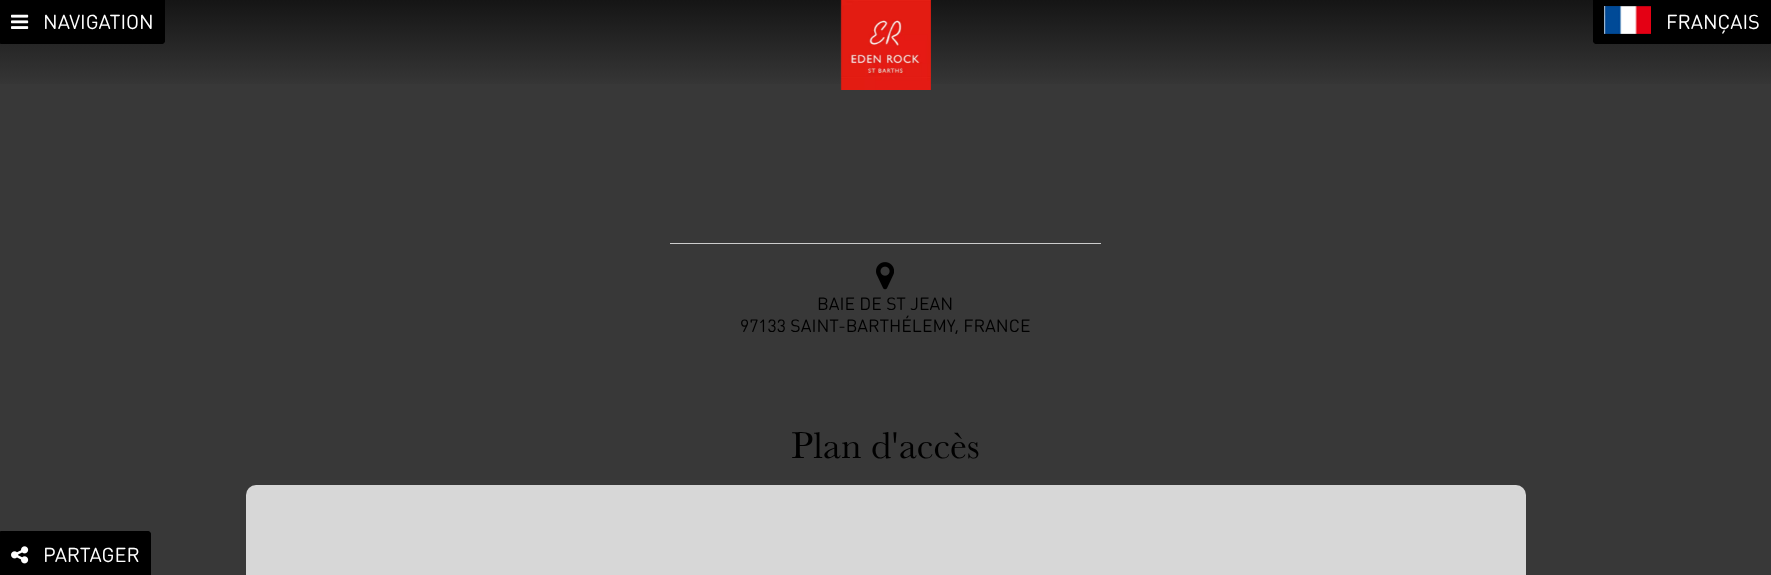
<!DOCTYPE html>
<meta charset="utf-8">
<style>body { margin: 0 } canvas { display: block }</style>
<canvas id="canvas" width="1771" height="575"></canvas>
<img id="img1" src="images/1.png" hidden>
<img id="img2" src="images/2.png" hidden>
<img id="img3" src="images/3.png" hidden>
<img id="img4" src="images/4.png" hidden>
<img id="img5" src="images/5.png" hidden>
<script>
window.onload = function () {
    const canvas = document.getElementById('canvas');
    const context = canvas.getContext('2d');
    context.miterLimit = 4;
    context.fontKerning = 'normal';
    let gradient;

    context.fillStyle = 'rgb(56, 56, 56)';
    context.fillRect(0, 0, 1771, 575);
    gradient = context.createLinearGradient(886, 90, 886, 0);
    gradient.addColorStop(0, 'rgb(56, 56, 56)');
    gradient.addColorStop(1, 'rgb(21, 21, 21)');
    context.fillStyle = gradient;
    context.fillRect(0, 0, 1771, 84);
    context.drawImage(document.getElementById('img1'), 840, 0, 91, 90);
    context.fillStyle = 'rgb(0, 0, 0)';
    context.beginPath();
    context.moveTo(0.5, -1.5);
    context.lineTo(164.5, -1.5);
    context.lineTo(164.5, 41);
    context.bezierCurveTo(164.5, 42.5, 163.5, 43.5, 162, 43.5);
    context.lineTo(0.5, 43.5);
    context.closePath();
    context.fill();
    context.strokeStyle = 'rgb(0, 0, 0)';
    context.stroke();
    context.drawImage(document.getElementById('img2'), 11, 14, 18, 15);
    context.beginPath();
    context.moveTo(1593.5, -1.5);
    context.lineTo(1770.5, -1.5);
    context.lineTo(1770.5, 43.5);
    context.lineTo(1596, 43.5);
    context.bezierCurveTo(1594.5, 43.5, 1593.5, 42.5, 1593.5, 41);
    context.closePath();
    context.fill();
    context.stroke();
    context.drawImage(document.getElementById('img3'), 1604, 6, 47, 28);
    context.beginPath();
    context.moveTo(0.5, 531.5);
    context.lineTo(148, 531.5);
    context.bezierCurveTo(149.5, 531.5, 150.5, 532.5, 150.5, 534);
    context.lineTo(150.5, 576.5);
    context.lineTo(0.5, 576.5);
    context.closePath();
    context.fill();
    context.stroke();
    context.drawImage(document.getElementById('img4'), 11, 546, 18, 18);
    context.fillStyle = 'rgb(204, 204, 204)';
    context.fillRect(670, 243, 431, 1);
    context.drawImage(document.getElementById('img5'), 876, 262, 18, 28);
    context.fillStyle = 'rgb(215, 215, 215)';
    context.beginPath();
    context.roundRect(246, 485, 1280, 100, 10);
    context.fill();
    context.font = '20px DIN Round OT';
    context.fillStyle = 'rgb(255, 255, 255)';
    context.fillText('NAVIGATION', 43, 29);
    context.fillText('FRANÇAIS', 1666, 29);
    context.fillText('PARTAGER', 43, 562);
    context.font = '17.6px DIN Round OT';
    context.fillStyle = 'rgb(0, 0, 0)';
    context.fillText('BAIE DE ST JEAN', 817, 310);
    context.fillText('97133 SAINT-BARTHÉLEMY, FRANCE', 740, 332);
    context.font = '38.5px "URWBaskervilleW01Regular"';
    context.fillText('Plan d\'accès', 791, 458);
};
</script>
